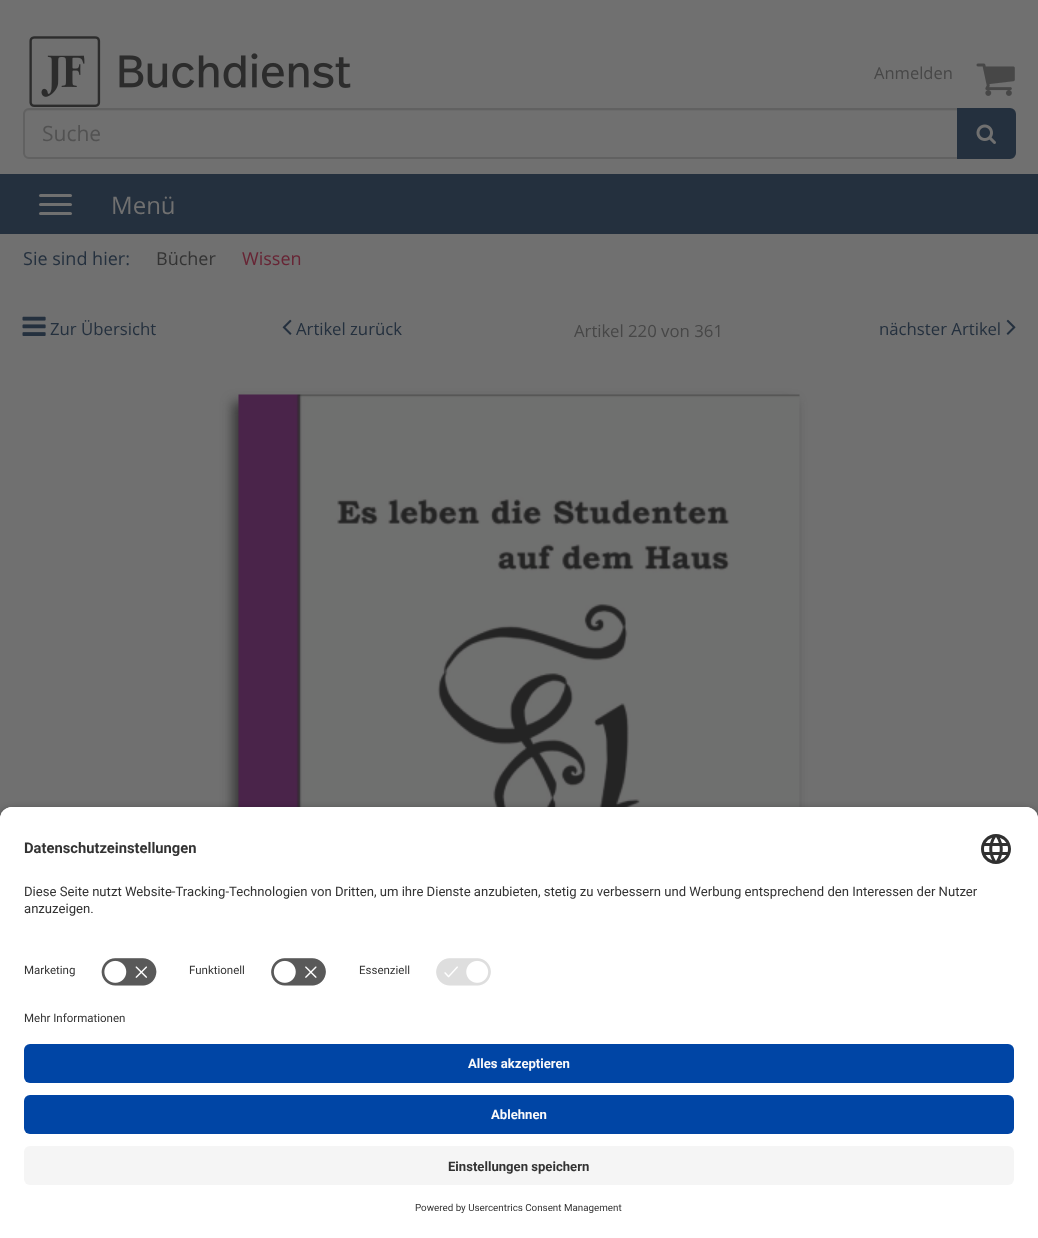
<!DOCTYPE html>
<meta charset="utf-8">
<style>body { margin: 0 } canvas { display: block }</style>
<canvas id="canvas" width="1038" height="1238"></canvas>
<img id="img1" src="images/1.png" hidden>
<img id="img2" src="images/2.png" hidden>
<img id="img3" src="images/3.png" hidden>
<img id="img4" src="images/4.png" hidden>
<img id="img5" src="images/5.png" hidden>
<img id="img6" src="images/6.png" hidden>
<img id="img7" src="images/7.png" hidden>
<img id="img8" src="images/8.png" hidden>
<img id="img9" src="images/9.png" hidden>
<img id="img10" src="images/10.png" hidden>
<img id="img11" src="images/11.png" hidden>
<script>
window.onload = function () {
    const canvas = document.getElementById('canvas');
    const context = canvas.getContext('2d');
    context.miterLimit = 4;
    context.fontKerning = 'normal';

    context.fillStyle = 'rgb(112, 112, 112)';
    context.fillRect(0, 0, 1038, 1238);
    context.drawImage(document.getElementById('img1'), 29, 36, 322, 71);
    context.drawImage(document.getElementById('img2'), 976, 63, 39, 33);
    context.fillStyle = 'rgb(107, 107, 107)';
    context.beginPath();
    context.moveTo(28, 111);
    context.lineTo(957, 111);
    context.lineTo(957, 110);
    context.lineTo(29, 110);
    context.bezierCurveTo(26, 110, 24, 113, 24, 116);
    context.bezierCurveTo(24, 113, 26, 111, 28, 111);
    context.closePath();
    context.fill();
    context.beginPath();
    context.roundRect(24, 109, 934, 49, [5, 0, 0, 5]);
    context.strokeStyle = 'rgb(97, 97, 97)';
    context.lineWidth = 2;
    context.stroke();
    context.fillStyle = 'rgb(36, 48, 62)';
    context.beginPath();
    context.roundRect(958, 109, 57, 49, [0, 5, 5, 0]);
    context.fill();
    context.strokeStyle = 'rgb(36, 48, 62)';
    context.stroke();
    context.drawImage(document.getElementById('img3'), 976, 124, 20, 20);
    context.fillRect(0, 174, 1038, 60);
    context.fillStyle = 'rgb(112, 112, 112)';
    context.beginPath();
    context.roundRect(39, 194, 33, 3, 1.5);
    context.fill();
    context.beginPath();
    context.roundRect(39, 203, 33, 3, 1.5);
    context.fill();
    context.beginPath();
    context.roundRect(39, 212, 33, 3, 1.5);
    context.fill();
    context.drawImage(document.getElementById('img4'), 22, 316, 24, 20);
    context.drawImage(document.getElementById('img5'), 282, 319, 10, 16);
    context.drawImage(document.getElementById('img6'), 1006, 319, 10, 16);
    context.fillStyle = 'rgb(56, 56, 56)';
    context.filter = 'blur(6px)';
    context.beginPath();
    context.rect(233, 402, 561, 810);
    context.fill();
    context.filter = 'none';
    context.drawImage(document.getElementById('img7'), 238, 394, 562, 413);
    context.fillStyle = 'rgba(0, 0, 0, 0.8)';
    context.filter = 'blur(5px)';
    context.beginPath();
    context.roundRect(0, 812, 1038, 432, 12);
    context.fill();
    context.filter = 'none';
    context.fillStyle = 'rgb(255, 255, 255)';
    context.beginPath();
    context.roundRect(0, 807, 1038, 206, [12, 12, 0, 0]);
    context.fill();
    context.beginPath();
    context.roundRect(0, 807, 1038, 140, [12, 12, 0, 0]);
    context.fill();
    context.drawImage(document.getElementById('img8'), 981, 834, 30, 30);
    context.drawImage(document.getElementById('img9'), 101, 958, 56, 28);
    context.drawImage(document.getElementById('img10'), 271, 958, 55, 28);
    context.drawImage(document.getElementById('img11'), 436, 958, 55, 28);
    context.fillRect(0, 1013, 1038, 225);
    context.fillStyle = 'rgb(0, 69, 165)';
    context.beginPath();
    context.roundRect(24, 1044, 990, 39, 6);
    context.fill();
    context.beginPath();
    context.roundRect(24, 1095, 990, 39, 6);
    context.fill();
    context.fillStyle = 'rgb(245, 245, 245)';
    context.beginPath();
    context.roundRect(24, 1146, 990, 39, 6);
    context.fill();
    context.font = '16.5px Open Sans';
    context.fillStyle = 'rgb(71, 71, 71)';
    context.fillText('Anmelden', 874, 79);
    context.font = '21px Open Sans';
    context.fillStyle = 'rgb(82, 82, 82)';
    context.fillText('Suche', 42, 141);
    context.font = '24px Open Sans';
    context.fillStyle = 'rgb(112, 112, 112)';
    context.fillText('Menü', 111, 214);
    context.font = '18px Open Sans';
    context.fillStyle = 'rgb(36, 48, 62)';
    context.fillText('Sie sind hier:', 23, 265);
    context.fillStyle = 'rgb(51, 51, 51)';
    context.fillText('Bücher', 156, 265);
    context.fillStyle = 'rgb(103, 36, 52)';
    context.fillText('Wissen', 242, 265);
    context.font = '16.75px Open Sans';
    context.fillStyle = 'rgb(36, 48, 62)';
    context.fillText('Zur Übersicht', 50, 335);
    context.fillText('Artikel zurück', 296, 335);
    context.fillStyle = 'rgb(71, 71, 71)';
    context.fillText('Artikel 220 von 361', 574, 337);
    context.fillStyle = 'rgb(36, 48, 62)';
    context.fillText('nächster Artikel', 879, 335);
    context.font = 'bold 14.75px Roboto';
    context.fillStyle = 'rgb(51, 51, 51)';
    context.fillText('Datenschutzeinstellungen', 24, 853);
    context.font = '13.12px Roboto';
    context.fillText('Diese Seite nutzt Website-Tracking-Technologien von Dritten, um ihre Dienste anzubieten, stetig zu verbessern und Werbung entsprechend den Interessen der Nutzer', 24, 896);
    context.fillText('anzuzeigen.', 24, 913);
    context.font = '11.5px Roboto';
    context.fillText('Marketing', 24, 974);
    context.fillText('Funktionell', 189, 974);
    context.fillText('Essenziell', 359, 974);
    context.fillText('Mehr Informationen', 24, 1022);
    context.font = 'bold 13.12px Roboto';
    context.fillStyle = 'rgb(250, 250, 250)';
    context.fillText('Alles akzeptieren', 468, 1068);
    context.fillText('Ablehnen', 491, 1119);
    context.fillStyle = 'rgb(51, 51, 51)';
    context.fillText('Einstellungen speichern', 448, 1171);
    context.font = '9.8px Roboto';
    context.fillText('Powered by Usercentrics Consent Management', 415, 1211);
};
</script>
